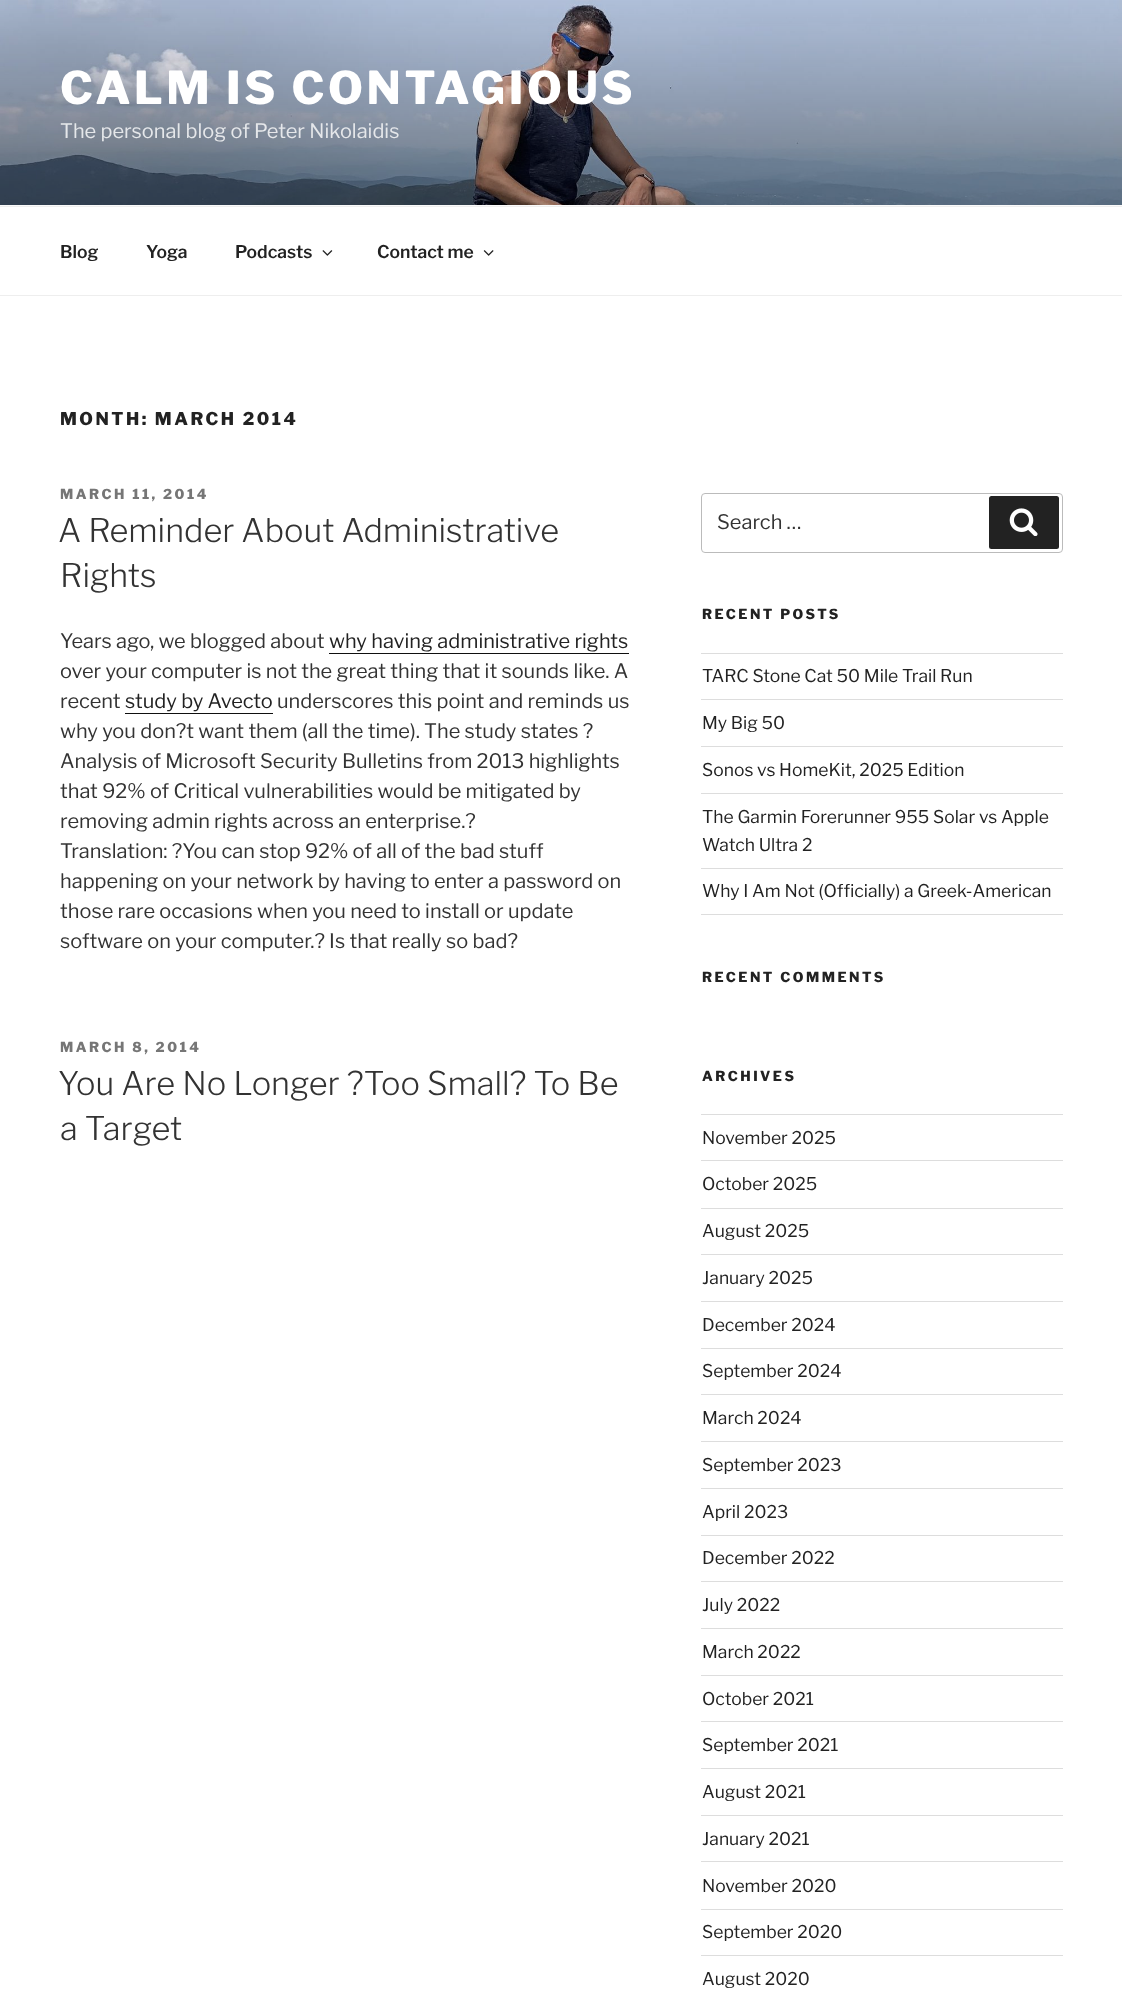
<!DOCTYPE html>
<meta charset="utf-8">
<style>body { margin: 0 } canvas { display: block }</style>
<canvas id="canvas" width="1122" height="1994"></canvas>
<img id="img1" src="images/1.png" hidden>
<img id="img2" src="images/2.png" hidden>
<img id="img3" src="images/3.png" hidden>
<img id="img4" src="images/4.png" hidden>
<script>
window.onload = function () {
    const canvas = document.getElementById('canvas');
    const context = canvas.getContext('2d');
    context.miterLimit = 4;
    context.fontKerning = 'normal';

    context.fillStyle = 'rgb(255, 255, 255)';
    context.fillRect(0, 0, 1122, 1994);
    context.fillStyle = 'rgb(250, 250, 250)';
    context.fillRect(0, 205, 1122, 1);
    context.drawImage(document.getElementById('img1'), 0, 0, 1122, 205);
    context.fillStyle = 'rgb(238, 238, 238)';
    context.fillRect(0, 206, 1122, 1);
    context.fillRect(0, 295, 1122, 1);
    context.drawImage(document.getElementById('img2'), 322, 250, 11, 6);
    context.drawImage(document.getElementById('img3'), 483, 250, 11, 6);
    context.fillStyle = 'rgb(15, 15, 15)';
    context.fillRect(329, 653, 300, 1);
    context.fillRect(125, 713, 148, 1);
    context.beginPath();
    context.roundRect(701.5, 493.5, 361, 59, 3.5);
    context.strokeStyle = 'rgb(187, 187, 187)';
    context.stroke();
    context.fillStyle = 'rgb(34, 34, 34)';
    context.beginPath();
    context.roundRect(989, 496, 70, 53, 2.5);
    context.fill();
    context.drawImage(document.getElementById('img4'), 1009, 508, 29, 28);
    context.fillStyle = 'rgb(221, 221, 221)';
    context.fillRect(701, 653, 362, 1);
    context.fillRect(701, 699, 362, 1);
    context.fillRect(701, 746, 362, 1);
    context.fillRect(701, 793, 362, 1);
    context.fillRect(701, 868, 362, 1);
    context.fillRect(701, 914, 362, 1);
    context.fillRect(701, 1114, 362, 1);
    context.fillRect(701, 1160, 362, 1);
    context.fillRect(701, 1208, 362, 1);
    context.fillRect(701, 1254, 362, 1);
    context.fillRect(701, 1301, 362, 1);
    context.fillRect(701, 1348, 362, 1);
    context.fillRect(701, 1394, 362, 1);
    context.fillRect(701, 1441, 362, 1);
    context.fillRect(701, 1488, 362, 1);
    context.fillRect(701, 1535, 362, 1);
    context.fillRect(701, 1581, 362, 1);
    context.fillRect(701, 1628, 362, 1);
    context.fillRect(701, 1675, 362, 1);
    context.fillRect(701, 1721, 362, 1);
    context.fillRect(701, 1768, 362, 1);
    context.fillRect(701, 1815, 362, 1);
    context.fillRect(701, 1861, 362, 1);
    context.fillRect(701, 1909, 362, 1);
    context.fillRect(701, 1955, 362, 1);
    context.letterSpacing = '3.6px';
    context.font = '100 45px Libre Franklin';
    context.fillStyle = 'rgb(255, 255, 255)';
    context.fillText('CALM IS CONTAGIOUS', 60, 104);
    context.letterSpacing = '0px';
    context.font = '100 20px "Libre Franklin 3"';
    context.fillStyle = 'rgb(229, 231, 234)';
    context.fillText('The personal blog of Peter Nikolaidis', 60, 138);
    context.font = '100 17.5px "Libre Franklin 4"';
    context.fillStyle = 'rgb(34, 34, 34)';
    context.fillText('Blog', 60, 258);
    context.fillText('Yoga', 146, 258);
    context.fillText('Podcasts', 235, 258);
    context.fillText('Contact me', 377, 258);
    context.letterSpacing = '2.5px';
    context.font = '100 17.5px Libre Franklin';
    context.fillText('MONTH: MARCH 2014', 60, 425);
    context.font = '100 13.75px Libre Franklin';
    context.fillStyle = 'rgb(118, 118, 118)';
    context.fillText('MARCH 11, 2014', 60, 499);
    context.letterSpacing = '0px';
    context.font = '100 32.5px "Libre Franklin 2"';
    context.fillStyle = 'rgb(51, 51, 51)';
    context.fillText('A Reminder About Administrative', 58, 542);
    context.fillText('Rights', 60, 587);
    context.font = '100 20px "Libre Franklin 3"';
    context.fillText('Years ago, we blogged about', 60, 648);
    context.fillStyle = 'rgb(34, 34, 34)';
    context.fillText('why having administrative rights', 329, 648);
    context.fillStyle = 'rgb(51, 51, 51)';
    context.fillText('over your computer is not the great thing that it sounds like. A', 60, 678);
    context.fillText('recent', 60, 708);
    context.fillStyle = 'rgb(34, 34, 34)';
    context.fillText('study by Avecto', 125, 708);
    context.fillStyle = 'rgb(51, 51, 51)';
    context.fillText('underscores this point and reminds us', 277, 708);
    context.fillText('why you don?t want them (all the time). The study states ?', 60, 738);
    context.fillText('Analysis of Microsoft Security Bulletins from 2013 highlights', 60, 768);
    context.fillText('that 92% of Critical vulnerabilities would be mitigated by', 60, 798);
    context.fillText('removing admin rights across an enterprise.?', 60, 828);
    context.fillText('Translation: ?You can stop 92% of all of the bad stuff', 60, 858);
    context.fillText('happening on your network by having to enter a password on', 60, 888);
    context.fillText('those rare occasions when you need to install or update', 60, 918);
    context.fillText('software on your computer.? Is that really so bad?', 60, 948);
    context.letterSpacing = '2.5px';
    context.font = '100 13.75px Libre Franklin';
    context.fillStyle = 'rgb(118, 118, 118)';
    context.fillText('MARCH 8, 2014', 60, 1052);
    context.letterSpacing = '0px';
    context.font = '100 32.5px "Libre Franklin 2"';
    context.fillStyle = 'rgb(51, 51, 51)';
    context.fillText('You Are No Longer ?Too Small? To Be', 58, 1095);
    context.fillText('a Target', 60, 1140);
    context.font = '100 20px "Libre Franklin 3"';
    context.fillText('Search …', 717, 529);
    context.letterSpacing = '2.5px';
    context.font = '100 13.75px Libre Franklin';
    context.fillStyle = 'rgb(34, 34, 34)';
    context.fillText('RECENT POSTS', 702, 619);
    context.letterSpacing = '0px';
    context.font = '100 17.5px "Libre Franklin 3"';
    context.fillText('TARC Stone Cat 50 Mile Trail Run', 702, 682);
    context.fillText('My Big 50', 702, 729);
    context.fillText('Sonos vs HomeKit, 2025 Edition', 702, 776);
    context.fillText('The Garmin Forerunner 955 Solar vs Apple', 702, 823);
    context.fillText('Watch Ultra 2', 702, 851);
    context.fillText('Why I Am Not (Officially) a Greek-American', 702, 897);
    context.letterSpacing = '2.5px';
    context.font = '100 13.75px Libre Franklin';
    context.fillText('RECENT COMMENTS', 702, 982);
    context.fillText('ARCHIVES', 702, 1081);
    context.letterSpacing = '0px';
    context.font = '100 17.5px "Libre Franklin 3"';
    context.fillText('November 2025', 702, 1144);
    context.fillText('October 2025', 702, 1190);
    context.fillText('August 2025', 702, 1237);
    context.fillText('January 2025', 702, 1284);
    context.fillText('December 2024', 702, 1331);
    context.fillText('September 2024', 702, 1377);
    context.fillText('March 2024', 702, 1424);
    context.fillText('September 2023', 702, 1471);
    context.fillText('April 2023', 702, 1518);
    context.fillText('December 2022', 702, 1564);
    context.fillText('July 2022', 702, 1611);
    context.fillText('March 2022', 702, 1658);
    context.fillText('October 2021', 702, 1705);
    context.fillText('September 2021', 702, 1751);
    context.fillText('August 2021', 702, 1798);
    context.fillText('January 2021', 702, 1845);
    context.fillText('November 2020', 702, 1892);
    context.fillText('September 2020', 702, 1938);
    context.fillText('August 2020', 702, 1985);
};
</script>
